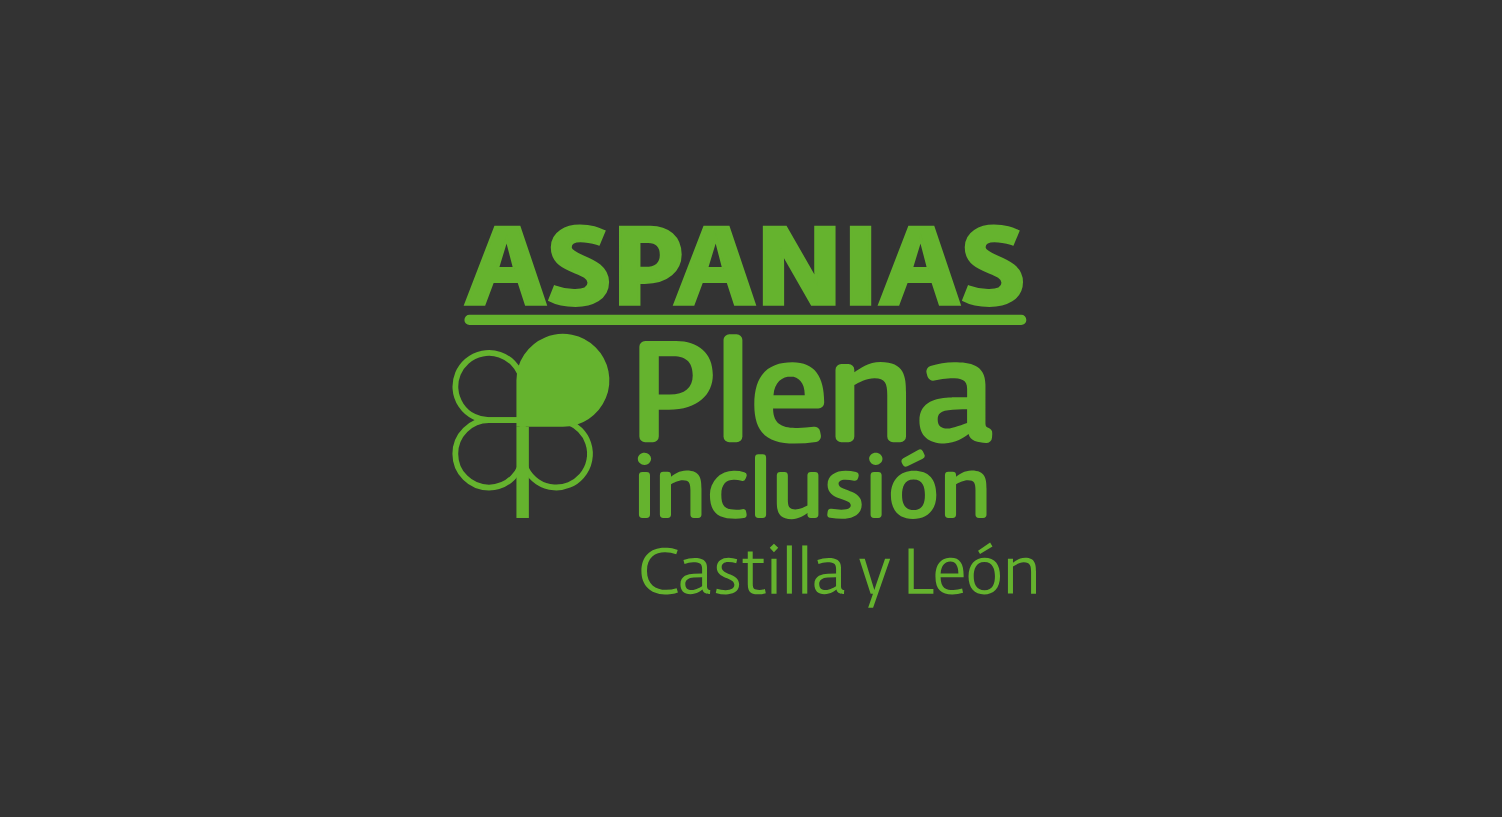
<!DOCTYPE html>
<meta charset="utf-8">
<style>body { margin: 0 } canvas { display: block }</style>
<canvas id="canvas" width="1502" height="817"></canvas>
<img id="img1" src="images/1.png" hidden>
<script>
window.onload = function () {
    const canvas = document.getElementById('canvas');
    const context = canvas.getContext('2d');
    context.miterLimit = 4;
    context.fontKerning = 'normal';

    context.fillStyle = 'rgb(51, 51, 51)';
    context.fillRect(0, 0, 1502, 817);
    context.drawImage(document.getElementById('img1'), 452, 224, 584, 384);
};
</script>
